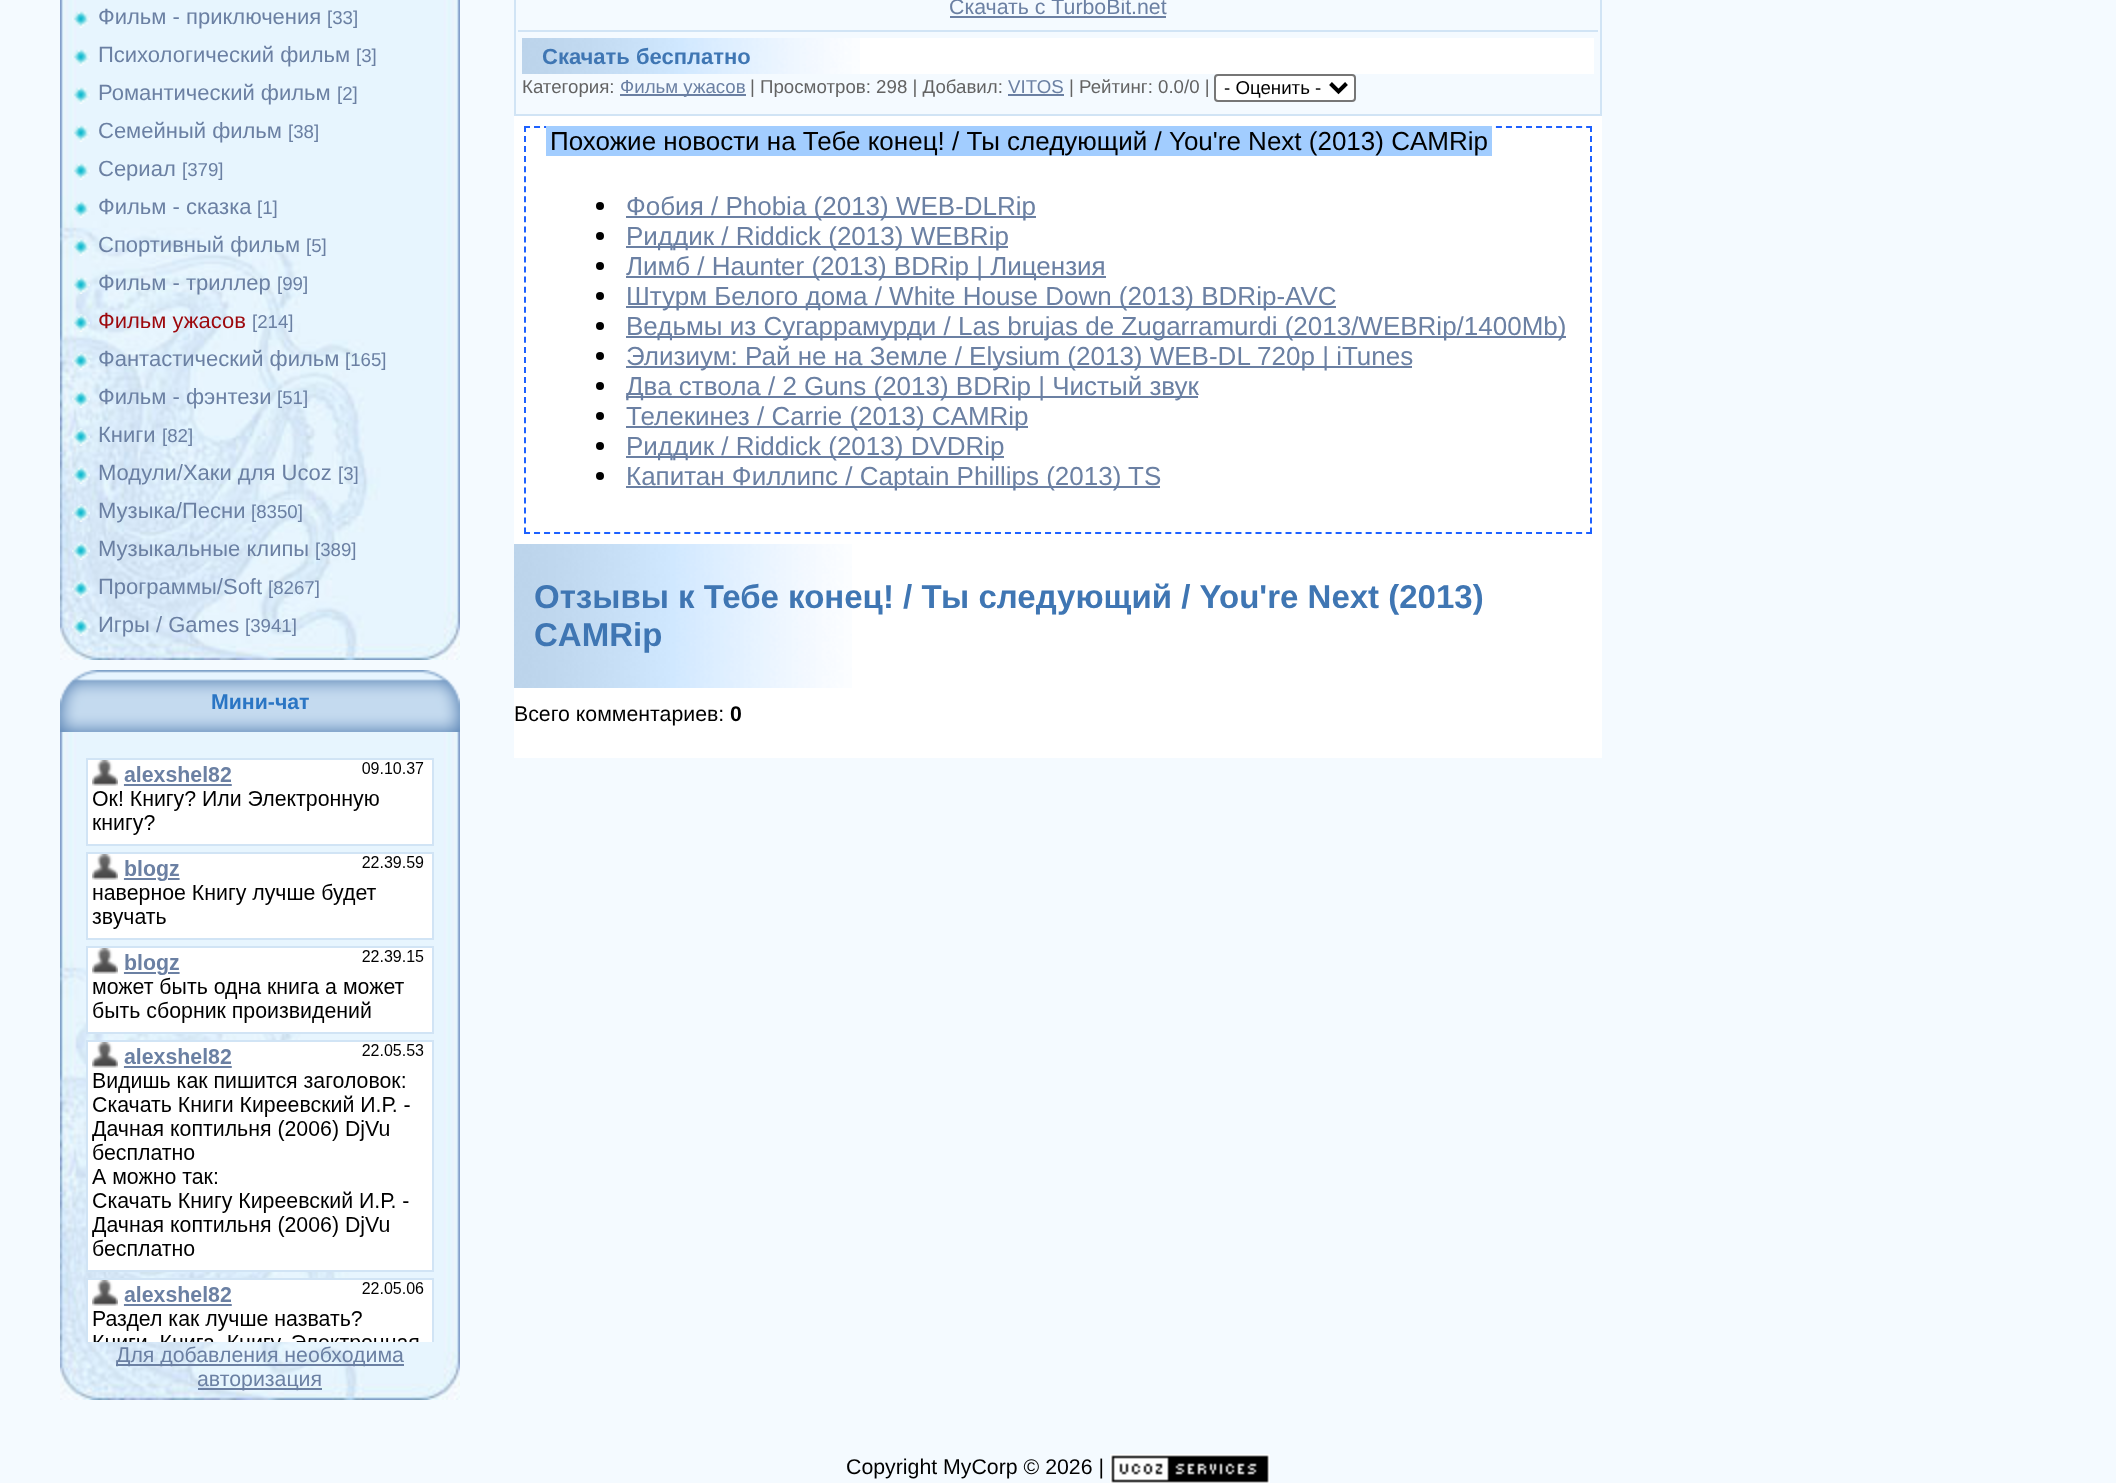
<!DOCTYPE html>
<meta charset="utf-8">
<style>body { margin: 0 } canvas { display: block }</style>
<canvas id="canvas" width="2116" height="1483"></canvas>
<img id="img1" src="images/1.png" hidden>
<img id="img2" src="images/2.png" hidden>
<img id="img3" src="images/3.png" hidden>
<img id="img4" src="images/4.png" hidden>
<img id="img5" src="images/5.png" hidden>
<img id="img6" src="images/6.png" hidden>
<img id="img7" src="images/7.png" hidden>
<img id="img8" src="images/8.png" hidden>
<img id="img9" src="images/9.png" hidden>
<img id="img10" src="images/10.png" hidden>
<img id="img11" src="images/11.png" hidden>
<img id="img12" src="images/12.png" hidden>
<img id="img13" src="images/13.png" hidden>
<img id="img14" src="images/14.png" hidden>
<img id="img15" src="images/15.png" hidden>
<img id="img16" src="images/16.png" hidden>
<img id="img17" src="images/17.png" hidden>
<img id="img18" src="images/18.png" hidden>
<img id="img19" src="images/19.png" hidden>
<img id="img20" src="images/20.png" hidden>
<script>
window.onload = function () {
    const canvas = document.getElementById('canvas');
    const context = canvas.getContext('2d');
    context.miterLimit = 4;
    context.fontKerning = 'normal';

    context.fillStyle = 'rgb(244, 250, 255)';
    context.fillRect(0, 0, 2116, 1483);
    context.drawImage(document.getElementById('img1'), 60, 0, 400, 660);
    context.drawImage(document.getElementById('img2'), 72, 11, 18, 17);
    context.drawImage(document.getElementById('img2'), 72, 49, 18, 17);
    context.drawImage(document.getElementById('img2'), 72, 87, 18, 17);
    context.drawImage(document.getElementById('img2'), 72, 125, 18, 17);
    context.drawImage(document.getElementById('img2'), 72, 163, 18, 17);
    context.drawImage(document.getElementById('img3'), 72, 201, 18, 17);
    context.drawImage(document.getElementById('img4'), 72, 238, 18, 18);
    context.drawImage(document.getElementById('img5'), 72, 277, 18, 17);
    context.drawImage(document.getElementById('img6'), 72, 314, 18, 18);
    context.drawImage(document.getElementById('img7'), 72, 352, 18, 18);
    context.drawImage(document.getElementById('img8'), 72, 391, 18, 17);
    context.drawImage(document.getElementById('img9'), 72, 428, 18, 18);
    context.drawImage(document.getElementById('img10'), 72, 466, 18, 18);
    context.drawImage(document.getElementById('img11'), 72, 504, 18, 18);
    context.drawImage(document.getElementById('img12'), 72, 542, 18, 18);
    context.drawImage(document.getElementById('img13'), 72, 580, 18, 18);
    context.drawImage(document.getElementById('img14'), 72, 618, 18, 18);
    context.drawImage(document.getElementById('img15'), 60, 670, 400, 62);
    context.drawImage(document.getElementById('img16'), 60, 732, 400, 668);
    context.drawImage(document.getElementById('img17'), 86, 758, 348, 584);
    context.fillStyle = 'rgb(107, 128, 163)';
    context.fillRect(116, 1364, 288, 2);
    context.fillRect(198, 1388, 124, 2);
    context.fillStyle = 'rgb(255, 255, 255)';
    context.fillRect(514, 116, 1088, 642);
    context.strokeStyle = 'rgb(209, 228, 245)';
    context.lineWidth = 2;
    context.strokeRect(515, -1, 1086, 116);
    context.fillStyle = 'rgb(107, 128, 163)';
    context.fillRect(950, 16, 216, 2);
    context.fillStyle = 'rgb(209, 228, 245)';
    context.fillRect(518, 30, 1080, 2);
    context.fillStyle = 'rgb(255, 255, 255)';
    context.fillRect(860, 38, 734, 36);
    context.drawImage(document.getElementById('img18'), 522, 38, 338, 36);
    context.fillStyle = 'rgb(107, 128, 163)';
    context.fillRect(620, 94, 126, 2);
    context.fillRect(1008, 94, 56, 2);
    context.fillStyle = 'rgb(255, 255, 255)';
    context.beginPath();
    context.roundRect(1215, 75, 140, 26, 3);
    context.fill();
    context.strokeStyle = 'rgb(118, 118, 118)';
    context.stroke();
    context.beginPath();
    context.moveTo(1330.5, 83.5);
    context.lineTo(1338.5, 91.5);
    context.lineTo(1346.5, 83.5);
    context.strokeStyle = 'rgb(0, 0, 0)';
    context.lineWidth = 4;
    context.stroke();
    context.beginPath();
    context.moveTo(524, 127);
    context.lineTo(1592, 127);
    context.strokeStyle = 'rgb(29, 97, 255)';
    context.lineWidth = 2;
    context.setLineDash([6, 4.02]);
    context.stroke();
    context.beginPath();
    context.moveTo(1591, 126);
    context.lineTo(1591, 534);
    context.setLineDash([6, 4.04]);
    context.stroke();
    context.beginPath();
    context.moveTo(524, 533);
    context.lineTo(1592, 533);
    context.setLineDash([6, 4.02]);
    context.stroke();
    context.beginPath();
    context.moveTo(525, 126);
    context.lineTo(525, 534);
    context.setLineDash([6, 4.04]);
    context.stroke();
    context.fillStyle = 'rgb(162, 205, 255)';
    context.fillRect(546, 126, 946, 30);
    context.fillStyle = 'rgb(0, 0, 0)';
    context.beginPath();
    context.arc(600, 206, 4, 0, 2 * Math.PI);
    context.fill();
    context.fillStyle = 'rgb(107, 128, 163)';
    context.fillRect(626, 216, 410, 2);
    context.fillStyle = 'rgb(0, 0, 0)';
    context.beginPath();
    context.arc(600, 236, 4, 0, 2 * Math.PI);
    context.fill();
    context.fillStyle = 'rgb(107, 128, 163)';
    context.fillRect(626, 246, 382, 2);
    context.fillStyle = 'rgb(0, 0, 0)';
    context.beginPath();
    context.arc(600, 266, 4, 0, 2 * Math.PI);
    context.fill();
    context.fillStyle = 'rgb(107, 128, 163)';
    context.fillRect(626, 276, 480, 2);
    context.fillStyle = 'rgb(0, 0, 0)';
    context.beginPath();
    context.arc(600, 296, 4, 0, 2 * Math.PI);
    context.fill();
    context.fillStyle = 'rgb(107, 128, 163)';
    context.fillRect(626, 306, 710, 2);
    context.fillStyle = 'rgb(0, 0, 0)';
    context.beginPath();
    context.arc(600, 326, 4, 0, 2 * Math.PI);
    context.fill();
    context.fillStyle = 'rgb(107, 128, 163)';
    context.fillRect(626, 336, 940, 2);
    context.fillStyle = 'rgb(0, 0, 0)';
    context.beginPath();
    context.arc(600, 356, 4, 0, 2 * Math.PI);
    context.fill();
    context.fillStyle = 'rgb(107, 128, 163)';
    context.fillRect(626, 366, 786, 2);
    context.fillStyle = 'rgb(0, 0, 0)';
    context.beginPath();
    context.arc(600, 386, 4, 0, 2 * Math.PI);
    context.fill();
    context.fillStyle = 'rgb(107, 128, 163)';
    context.fillRect(626, 396, 572, 2);
    context.fillStyle = 'rgb(0, 0, 0)';
    context.beginPath();
    context.arc(600, 416, 4, 0, 2 * Math.PI);
    context.fill();
    context.fillStyle = 'rgb(107, 128, 163)';
    context.fillRect(626, 426, 402, 2);
    context.fillStyle = 'rgb(0, 0, 0)';
    context.beginPath();
    context.arc(600, 446, 4, 0, 2 * Math.PI);
    context.fill();
    context.fillStyle = 'rgb(107, 128, 163)';
    context.fillRect(626, 456, 378, 2);
    context.fillStyle = 'rgb(0, 0, 0)';
    context.beginPath();
    context.arc(600, 476, 4, 0, 2 * Math.PI);
    context.fill();
    context.fillStyle = 'rgb(107, 128, 163)';
    context.fillRect(626, 486, 534, 2);
    context.drawImage(document.getElementById('img19'), 514, 544, 338, 144);
    context.drawImage(document.getElementById('img20'), 1110, 1454, 160, 29);
    context.font = '22px Liberation Sans';
    context.fillText('Фильм - приключения', 98, 24);
    context.font = '18.7px Liberation Sans';
    context.fillText('[33]', 327, 24);
    context.font = '22px Liberation Sans';
    context.fillText('Психологический фильм', 98, 62);
    context.font = '18.7px Liberation Sans';
    context.fillText('[3]', 356, 62);
    context.font = '22px Liberation Sans';
    context.fillText('Романтический фильм', 98, 100);
    context.font = '18.7px Liberation Sans';
    context.fillText('[2]', 337, 100);
    context.font = '22px Liberation Sans';
    context.fillText('Семейный фильм', 98, 138);
    context.font = '18.7px Liberation Sans';
    context.fillText('[38]', 288, 138);
    context.font = '22px Liberation Sans';
    context.fillText('Сериал', 98, 176);
    context.font = '18.7px Liberation Sans';
    context.fillText('[379]', 182, 176);
    context.font = '22px Liberation Sans';
    context.fillText('Фильм - сказка', 98, 214);
    context.font = '18.7px Liberation Sans';
    context.fillText('[1]', 257, 214);
    context.font = '22px Liberation Sans';
    context.fillText('Спортивный фильм', 98, 252);
    context.font = '18.7px Liberation Sans';
    context.fillText('[5]', 306, 252);
    context.font = '22px Liberation Sans';
    context.fillText('Фильм - триллер', 98, 290);
    context.font = '18.7px Liberation Sans';
    context.fillText('[99]', 277, 290);
    context.font = '22px Liberation Sans';
    context.fillStyle = 'rgb(157, 8, 13)';
    context.fillText('Фильм ужасов', 98, 328);
    context.font = '18.7px Liberation Sans';
    context.fillStyle = 'rgb(107, 128, 163)';
    context.fillText('[214]', 252, 328);
    context.font = '22px Liberation Sans';
    context.fillText('Фантастический фильм', 98, 366);
    context.font = '18.7px Liberation Sans';
    context.fillText('[165]', 345, 366);
    context.font = '22px Liberation Sans';
    context.fillText('Фильм - фэнтези', 98, 404);
    context.font = '18.7px Liberation Sans';
    context.fillText('[51]', 277, 404);
    context.font = '22px Liberation Sans';
    context.fillText('Книги', 98, 442);
    context.font = '18.7px Liberation Sans';
    context.fillText('[82]', 162, 442);
    context.font = '22px Liberation Sans';
    context.fillText('Модули/Хаки для Ucoz', 98, 480);
    context.font = '18.7px Liberation Sans';
    context.fillText('[3]', 338, 480);
    context.font = '22px Liberation Sans';
    context.fillText('Музыка/Песни', 98, 518);
    context.font = '18.7px Liberation Sans';
    context.fillText('[8350]', 251, 518);
    context.font = '22px Liberation Sans';
    context.fillText('Музыкальные клипы', 98, 556);
    context.font = '18.7px Liberation Sans';
    context.fillText('[389]', 315, 556);
    context.font = '22px Liberation Sans';
    context.fillText('Программы/Soft', 98, 594);
    context.font = '18.7px Liberation Sans';
    context.fillText('[8267]', 268, 594);
    context.font = '22px Liberation Sans';
    context.fillText('Игры / Games', 98, 632);
    context.font = '18.7px Liberation Sans';
    context.fillText('[3941]', 245, 632);
    context.font = 'bold 21.3px Liberation Sans';
    context.fillStyle = 'rgb(42, 117, 196)';
    context.fillText('Мини-чат', 211, 709);
    context.font = '21.3px Liberation Sans';
    context.fillStyle = 'rgb(107, 128, 163)';
    context.fillText('Для добавления необходима', 116, 1362);
    context.fillText('авторизация', 197, 1386);
    context.fillText('Скачать с TurboBit.net', 949, 14);
    context.font = 'bold 22px Liberation Sans';
    context.fillStyle = 'rgb(63, 118, 179)';
    context.fillText('Скачать бесплатно', 542, 64);
    context.font = '18.7px Liberation Sans';
    context.fillStyle = 'rgb(99, 99, 99)';
    context.fillText('Категория:', 522, 93);
    context.fillStyle = 'rgb(107, 128, 163)';
    context.fillText('Фильм ужасов', 620, 93);
    context.fillStyle = 'rgb(99, 99, 99)';
    context.fillText('| Просмотров: 298 | Добавил:', 750, 93);
    context.fillStyle = 'rgb(107, 128, 163)';
    context.fillText('VITOS', 1008, 93);
    context.fillStyle = 'rgb(99, 99, 99)';
    context.fillText('| Рейтинг: 0.0/0 |', 1069, 93);
    context.fillStyle = 'rgb(0, 0, 0)';
    context.fillText('- Оценить -', 1224, 94);
    context.font = '26px Liberation Sans';
    context.fillText('Похожие новости на Тебе конец! / Ты следующий / You\'re Next (2013) CAMRip', 550, 150);
    context.fillStyle = 'rgb(107, 128, 163)';
    context.fillText('Фобия / Phobia (2013) WEB-DLRip', 626, 215);
    context.fillText('Риддик / Riddick (2013) WEBRip', 626, 245);
    context.fillText('Лимб / Haunter (2013) BDRip | Лицензия', 626, 275);
    context.fillText('Штурм Белого дома / White House Down (2013) BDRip-AVC', 626, 305);
    context.fillText('Ведьмы из Сугаррамурди / Las brujas de Zugarramurdi (2013/WEBRip/1400Mb)', 626, 335);
    context.fillText('Элизиум: Рай не на Земле / Elysium (2013) WEB-DL 720p | iTunes', 626, 365);
    context.fillText('Два ствола / 2 Guns (2013) BDRip | Чистый звук', 626, 395);
    context.fillText('Телекинез / Carrie (2013) CAMRip', 626, 425);
    context.fillText('Риддик / Riddick (2013) DVDRip', 626, 455);
    context.fillText('Капитан Филлипс / Captain Phillips (2013) TS', 626, 485);
    context.font = 'bold 33px Liberation Sans';
    context.fillStyle = 'rgb(63, 118, 179)';
    context.fillText('Отзывы к Тебе конец! / Ты следующий / You\'re Next (2013)', 534, 608);
    context.fillText('CAMRip', 534, 646);
    context.font = '21.3px Liberation Sans';
    context.fillStyle = 'rgb(0, 0, 0)';
    context.fillText('Всего комментариев:', 514, 721);
    context.font = 'bold 21.3px Liberation Sans';
    context.fillText('0', 730, 721);
    context.font = '21.3px Liberation Sans';
    context.fillText('Copyright MyCorp © 2026 |', 846, 1474);
};
</script>
